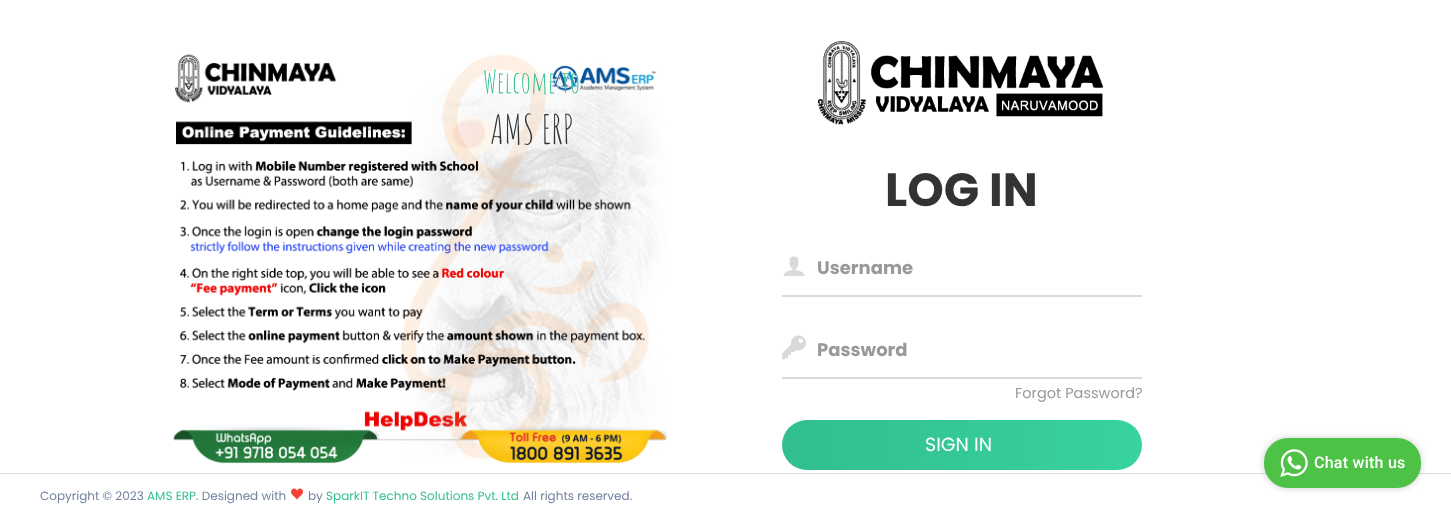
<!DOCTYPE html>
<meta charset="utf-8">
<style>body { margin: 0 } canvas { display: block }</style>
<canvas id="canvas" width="1451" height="518"></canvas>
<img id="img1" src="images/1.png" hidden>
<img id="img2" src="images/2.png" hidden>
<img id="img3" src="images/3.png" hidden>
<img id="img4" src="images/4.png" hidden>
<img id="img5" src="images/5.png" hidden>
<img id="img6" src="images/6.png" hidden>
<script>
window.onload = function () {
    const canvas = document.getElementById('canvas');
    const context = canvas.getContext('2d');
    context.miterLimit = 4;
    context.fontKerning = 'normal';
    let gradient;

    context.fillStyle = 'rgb(255, 255, 255)';
    context.fillRect(0, 0, 1451, 518);
    context.drawImage(document.getElementById('img1'), 173, 54, 495, 410);
    context.drawImage(document.getElementById('img2'), 818, 41, 286, 84);
    context.fillStyle = 'rgb(217, 217, 217)';
    context.fillRect(782, 295, 360, 2);
    context.drawImage(document.getElementById('img3'), 783, 256, 22, 20);
    context.fillRect(782, 377, 360, 2);
    context.drawImage(document.getElementById('img4'), 782, 335, 24, 25);
    gradient = context.createLinearGradient(782, 445, 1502, 445);
    gradient.addColorStop(0, 'rgb(50, 190, 143)');
    gradient.addColorStop(0.5, 'rgb(56, 211, 159)');
    gradient.addColorStop(1, 'rgb(50, 190, 143)');
    context.fillStyle = gradient;
    context.beginPath();
    context.roundRect(782, 420, 360, 50, 25);
    context.fill();
    context.fillStyle = 'rgb(221, 221, 221)';
    context.fillRect(0, 473, 1451, 1);
    context.fillStyle = 'rgba(0, 0, 0, 0.2)';
    context.filter = 'blur(3.5px)';
    context.beginPath();
    context.roundRect(1264, 438, 157, 50, 24);
    context.fill();
    context.filter = 'none';
    context.fillStyle = 'rgb(77, 194, 71)';
    context.beginPath();
    context.roundRect(1264, 438, 157, 50, 24);
    context.fill();
    context.drawImage(document.getElementById('img5'), 1280, 449, 28, 28);
    context.drawImage(document.getElementById('img6'), 291, 488, 12, 12);
    context.font = '30px Amatic SC';
    context.fillStyle = 'rgb(51, 190, 143)';
    context.fillText('Welcome to', 483, 93);
    context.font = '40px Amatic SC';
    context.fillStyle = 'rgb(51, 51, 51)';
    context.fillText('AMS ERP', 490, 144);
    context.font = 'bold 46.5px Poppins';
    context.fillText('LOG IN', 885, 206);
    context.font = 'bold 18px Poppins';
    context.fillStyle = 'rgb(153, 153, 153)';
    context.fillText('Username', 817, 274);
    context.fillText('Password', 817, 356);
    context.font = '14.5px Poppins';
    context.fillText('Forgot Password?', 1015, 398);
    context.font = '19px Poppins';
    context.fillStyle = 'rgb(255, 255, 255)';
    context.fillText('SIGN IN', 925, 451);
    context.letterSpacing = '0.25px';
    context.font = '500 16px Roboto';
    context.fillText('Chat with us', 1314, 468);
    context.letterSpacing = '0px';
    context.font = '12px Poppins';
    context.fillStyle = 'rgb(115, 127, 158)';
    context.fillText('Copyright © 2023', 40, 500);
    context.fillStyle = 'rgb(51, 190, 143)';
    context.fillText('AMS ERP', 147, 500);
    context.fillStyle = 'rgb(115, 127, 158)';
    context.fillText('. Designed with', 196, 500);
    context.fillText('by', 308, 500);
    context.fillStyle = 'rgb(51, 190, 143)';
    context.fillText('SparkIT Techno Solutions Pvt. Ltd', 326, 500);
    context.fillStyle = 'rgb(115, 127, 158)';
    context.fillText('All rights reserved.', 523, 500);
};
</script>
